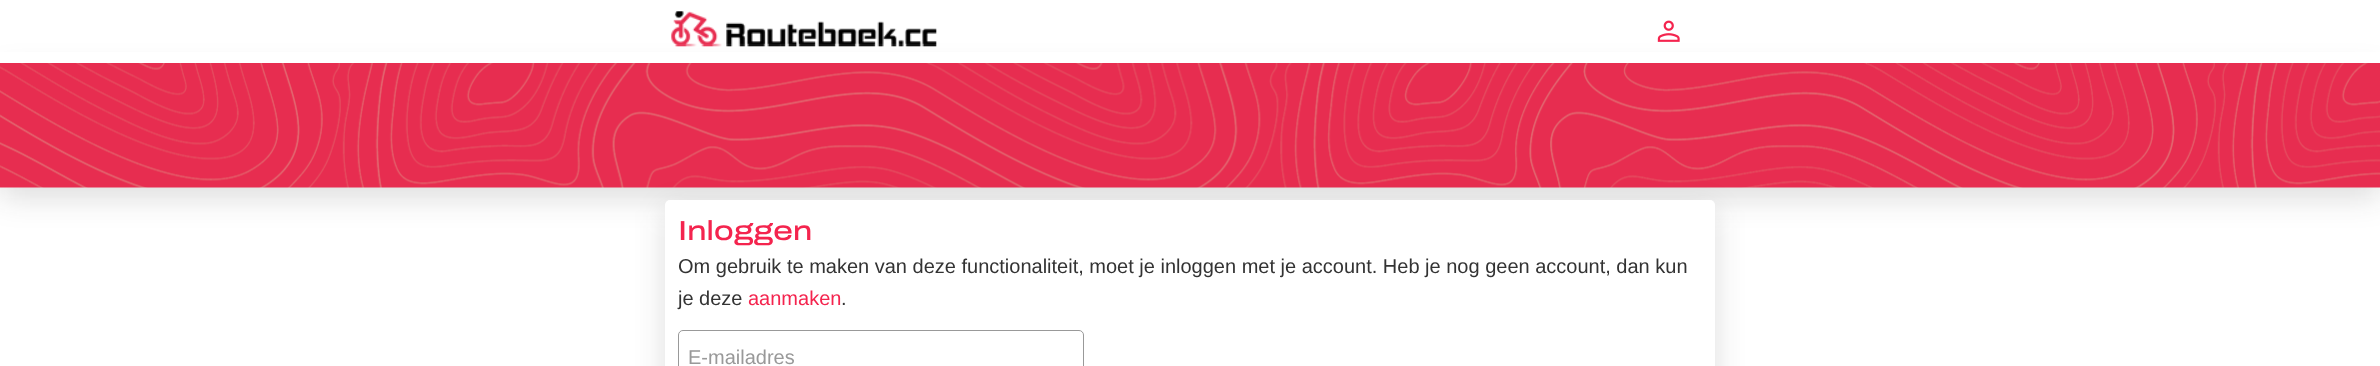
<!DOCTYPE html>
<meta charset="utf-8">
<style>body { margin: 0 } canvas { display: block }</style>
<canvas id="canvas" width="2380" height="366"></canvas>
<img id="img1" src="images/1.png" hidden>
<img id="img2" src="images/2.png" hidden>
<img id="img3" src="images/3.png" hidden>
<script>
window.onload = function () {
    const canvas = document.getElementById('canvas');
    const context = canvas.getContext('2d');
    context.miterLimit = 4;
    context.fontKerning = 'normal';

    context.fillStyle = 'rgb(255, 255, 255)';
    context.fillRect(0, 0, 2380, 366);
    context.fillStyle = 'rgba(25, 25, 25, 0.15)';
    context.filter = 'blur(15px)';
    context.beginPath();
    context.rect(0, 73, 2380, 125);
    context.fill();
    context.filter = 'none';
    context.fillStyle = 'rgb(255, 255, 255)';
    context.fillRect(0, 52, 2380, 11);
    context.drawImage(document.getElementById('img1'), 671, 11, 266, 36);
    context.drawImage(document.getElementById('img2'), 1657, 20, 23, 22);
    context.drawImage(document.getElementById('img3'), 0, 63, 2380, 125);
    context.fillStyle = 'rgba(25, 25, 25, 0.15)';
    context.filter = 'blur(15px)';
    context.beginPath();
    context.roundRect(665, 210, 1050, 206, 5);
    context.fill();
    context.filter = 'none';
    context.fillStyle = 'rgb(255, 255, 255)';
    context.beginPath();
    context.roundRect(665, 200, 1050, 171, 5);
    context.fill();
    context.beginPath();
    context.roundRect(678.5, 330.5, 405, 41, 4.5);
    context.strokeStyle = 'rgb(153, 153, 153)';
    context.stroke();
    context.font = '600 27.5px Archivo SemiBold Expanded';
    context.fillStyle = 'rgb(244, 36, 78)';
    context.fillText('Inloggen', 678, 240);
    context.font = '20px Liberation Sans';
    context.fillStyle = 'rgb(51, 51, 51)';
    context.fillText('Om gebruik te maken van deze functionaliteit, moet je inloggen met je account. Heb je nog geen account, dan kun', 678, 273);
    context.fillText('je deze', 678, 305);
    context.fillStyle = 'rgb(244, 36, 78)';
    context.fillText('aanmaken', 748, 305);
    context.fillStyle = 'rgb(51, 51, 51)';
    context.fillText('.', 841, 305);
    context.fillStyle = 'rgb(153, 153, 153)';
    context.fillText('E-mailadres', 688, 364);
};
</script>
